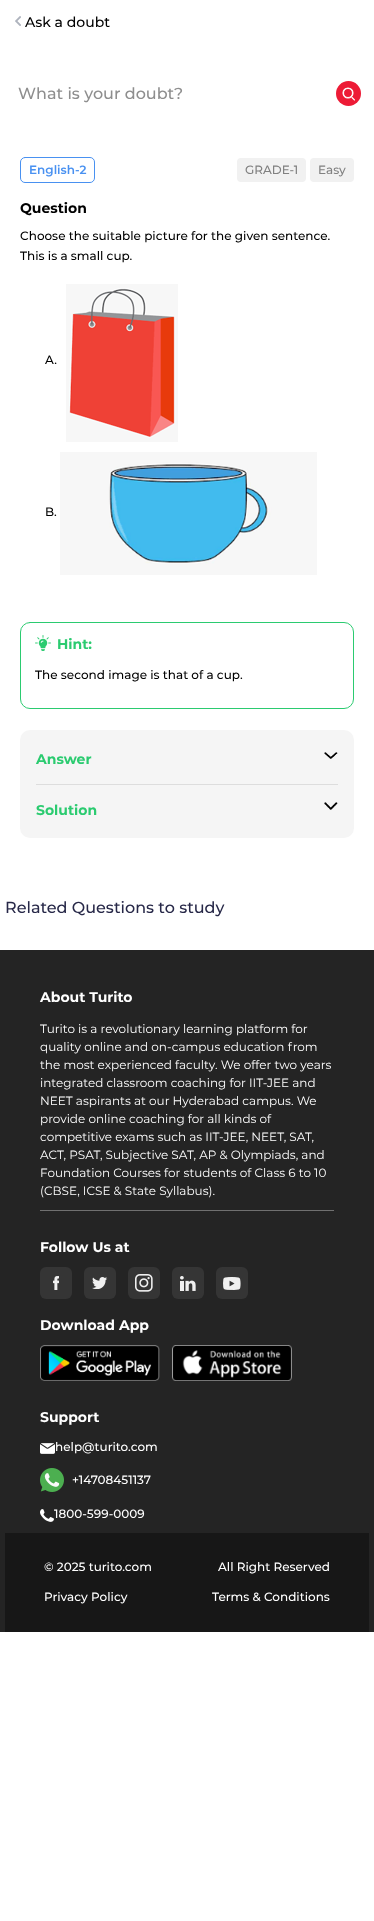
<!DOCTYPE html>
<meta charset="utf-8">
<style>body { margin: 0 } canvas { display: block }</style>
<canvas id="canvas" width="374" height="1921"></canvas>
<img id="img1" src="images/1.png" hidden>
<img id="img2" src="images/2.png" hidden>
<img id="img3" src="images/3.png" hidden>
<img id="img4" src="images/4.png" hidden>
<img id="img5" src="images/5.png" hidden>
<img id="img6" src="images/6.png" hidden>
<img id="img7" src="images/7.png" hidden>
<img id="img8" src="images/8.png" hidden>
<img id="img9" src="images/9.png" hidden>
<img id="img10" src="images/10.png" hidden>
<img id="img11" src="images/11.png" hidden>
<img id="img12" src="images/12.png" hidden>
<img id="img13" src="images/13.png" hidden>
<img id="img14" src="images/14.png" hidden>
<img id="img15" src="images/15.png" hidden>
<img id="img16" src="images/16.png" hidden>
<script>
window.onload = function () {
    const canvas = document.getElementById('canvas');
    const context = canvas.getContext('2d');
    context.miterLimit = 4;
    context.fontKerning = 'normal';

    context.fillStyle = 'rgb(255, 255, 255)';
    context.fillRect(0, 0, 374, 1921);
    context.drawImage(document.getElementById('img1'), 15, 16, 6, 10);
    context.fillStyle = 'rgb(237, 27, 54)';
    context.beginPath();
    context.arc(348.5, 93.5, 12.5, 0, 2 * Math.PI);
    context.fill();
    context.beginPath();
    context.arc(348, 93, 5, 0, 2 * Math.PI);
    context.strokeStyle = 'rgb(255, 255, 255)';
    context.lineWidth = 1.1;
    context.stroke();
    context.beginPath();
    context.arc(348, 93, 4.5, 0, 2 * Math.PI);
    context.stroke();
    context.beginPath();
    context.moveTo(352, 97.5);
    context.lineTo(354.5, 100);
    context.lineCap = 'round';
    context.stroke();
    context.beginPath();
    context.roundRect(20.5, 157.5, 74, 25, 4.5);
    context.strokeStyle = 'rgb(73, 145, 241)';
    context.lineWidth = 1;
    context.stroke();
    context.fillStyle = 'rgb(241, 241, 241)';
    context.beginPath();
    context.roundRect(237, 158, 69, 24, 4);
    context.fill();
    context.beginPath();
    context.roundRect(310, 158, 44, 24, 4);
    context.fill();
    context.drawImage(document.getElementById('img2'), 66, 284, 112, 158);
    context.drawImage(document.getElementById('img3'), 60, 452, 257, 123);
    context.beginPath();
    context.roundRect(20.5, 622.5, 333, 86, 9.5);
    context.strokeStyle = 'rgb(43, 203, 112)';
    context.stroke();
    context.drawImage(document.getElementById('img4'), 35, 635, 16, 16);
    context.fillStyle = 'rgb(245, 245, 245)';
    context.beginPath();
    context.roundRect(20, 730, 334, 108, 10);
    context.fill();
    context.drawImage(document.getElementById('img5'), 324, 752, 14, 7);
    context.fillStyle = 'rgb(221, 221, 221)';
    context.fillRect(36, 784, 302, 1);
    context.drawImage(document.getElementById('img6'), 324, 802, 14, 8);
    context.fillStyle = 'rgb(36, 36, 36)';
    context.fillRect(0, 950, 374, 682);
    context.fillStyle = 'rgb(112, 112, 112)';
    context.fillRect(40, 1210, 294, 1);
    context.fillStyle = 'rgb(53, 53, 53)';
    context.beginPath();
    context.roundRect(40, 1267, 32, 32, 6);
    context.fill();
    context.drawImage(document.getElementById('img7'), 53, 1276, 6, 14);
    context.beginPath();
    context.roundRect(84, 1267, 32, 32, 6);
    context.fill();
    context.drawImage(document.getElementById('img8'), 92, 1277, 16, 12);
    context.beginPath();
    context.roundRect(128, 1267, 32, 32, 6);
    context.fill();
    context.drawImage(document.getElementById('img9'), 135, 1274, 18, 18);
    context.beginPath();
    context.roundRect(172, 1267, 32, 32, 6);
    context.fill();
    context.drawImage(document.getElementById('img10'), 180, 1276, 16, 15);
    context.beginPath();
    context.roundRect(216, 1267, 32, 32, 6);
    context.fill();
    context.drawImage(document.getElementById('img11'), 223, 1277, 18, 13);
    context.drawImage(document.getElementById('img12'), 40, 1345, 120, 36);
    context.drawImage(document.getElementById('img13'), 172, 1345, 120, 36);
    context.drawImage(document.getElementById('img14'), 40, 1443, 15, 11);
    context.drawImage(document.getElementById('img15'), 40, 1468, 24, 24);
    context.drawImage(document.getElementById('img16'), 40, 1509, 14, 13);
    context.fillStyle = 'rgb(23, 23, 23)';
    context.fillRect(5, 1533, 364, 99);
    context.font = '500 14px Montserrat';
    context.fillStyle = 'rgb(0, 0, 0)';
    context.fillText('Ask a doubt', 25, 27);
    context.font = '500 16px Montserrat';
    context.fillStyle = 'rgb(142, 142, 142)';
    context.fillText('What is your doubt?', 18, 99);
    context.font = '600 12px Montserrat';
    context.fillStyle = 'rgb(73, 145, 241)';
    context.fillText('English-2', 29, 174);
    context.font = '500 12px Montserrat';
    context.fillStyle = 'rgb(129, 129, 129)';
    context.fillText('GRADE-1', 245, 174);
    context.fillText('Easy', 318, 174);
    context.font = 'bold 14px Montserrat';
    context.fillStyle = 'rgb(0, 0, 0)';
    context.fillText('Question', 20, 213);
    context.font = '500 12px Montserrat';
    context.fillText('Choose the suitable picture for the given sentence.', 20, 240);
    context.fillText('This is a small cup.', 20, 260);
    context.fillText('A.', 45, 364);
    context.fillText('B.', 45, 516);
    context.font = 'bold 14px Montserrat';
    context.fillStyle = 'rgb(43, 203, 112)';
    context.fillText('Hint:', 57, 649);
    context.font = '500 12px Montserrat';
    context.fillStyle = 'rgb(0, 0, 0)';
    context.fillText('The second image is that of a cup.', 35, 679);
    context.font = 'bold 14px Montserrat';
    context.fillStyle = 'rgb(43, 203, 112)';
    context.fillText('Answer', 36, 764);
    context.fillText('Solution', 36, 815);
    context.font = '500 16px Montserrat';
    context.fillStyle = 'rgb(39, 40, 72)';
    context.fillText('Related Questions to study', 5, 913);
    context.font = 'bold 14px Montserrat';
    context.fillStyle = 'rgb(255, 255, 255)';
    context.fillText('About Turito', 40, 1002);
    context.font = '12px Montserrat';
    context.fillText('Turito is a revolutionary learning platform for', 40, 1033);
    context.fillText('quality online and on-campus education from', 40, 1051);
    context.fillText('the most experienced faculty. We offer two years', 40, 1069);
    context.fillText('integrated classroom coaching for IIT-JEE and', 40, 1087);
    context.fillText('NEET aspirants at our Hyderabad campus. We', 40, 1105);
    context.fillText('provide online coaching for all kinds of', 40, 1123);
    context.fillText('competitive exams such as IIT-JEE, NEET, SAT,', 40, 1141);
    context.fillText('ACT, PSAT, Subjective SAT, AP & Olympiads, and', 40, 1159);
    context.fillText('Foundation Courses for students of Class 6 to 10', 40, 1177);
    context.fillText('(CBSE, ICSE & State Syllabus).', 40, 1195);
    context.font = 'bold 14px Montserrat';
    context.fillText('Follow Us at', 40, 1252);
    context.fillText('Download App', 40, 1330);
    context.fillText('Support', 40, 1422);
    context.font = '500 12px Montserrat';
    context.fillText('help@turito.com', 55, 1451);
    context.fillText('+14708451137', 72, 1484);
    context.fillText('1800-599-0009', 54, 1518);
    context.fillText('© 2025 turito.com', 44, 1571);
    context.fillText('All Right Reserved', 218, 1571);
    context.fillText('Privacy Policy', 44, 1601);
    context.fillText('Terms & Conditions', 212, 1601);
};
</script>
